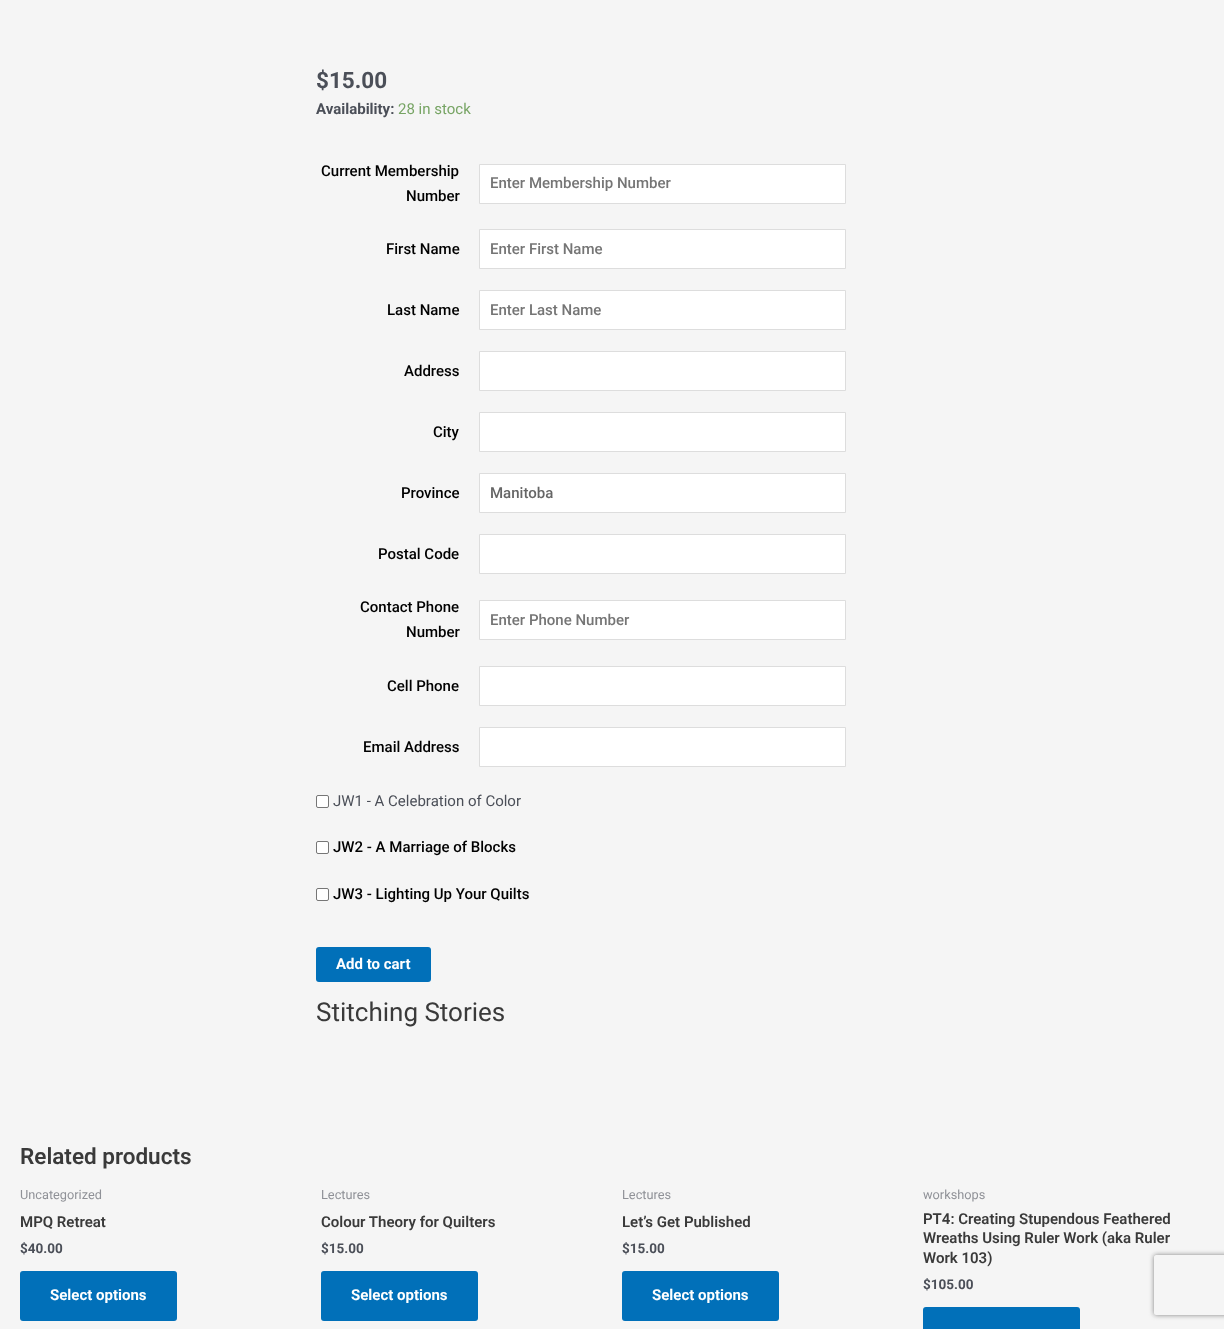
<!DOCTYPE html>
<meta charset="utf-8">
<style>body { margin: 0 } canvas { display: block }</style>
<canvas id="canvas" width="1224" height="1329"></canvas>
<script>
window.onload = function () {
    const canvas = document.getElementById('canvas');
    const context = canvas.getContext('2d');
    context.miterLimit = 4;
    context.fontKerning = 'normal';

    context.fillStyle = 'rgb(245, 245, 245)';
    context.fillRect(0, 0, 1224, 1329);
    context.fillStyle = 'rgb(255, 255, 255)';
    context.beginPath();
    context.rect(479.5, 164.5, 366, 39);
    context.fill();
    context.strokeStyle = 'rgb(221, 221, 221)';
    context.stroke();
    context.beginPath();
    context.rect(479.5, 229.5, 366, 39);
    context.fill();
    context.stroke();
    context.beginPath();
    context.rect(479.5, 290.5, 366, 39);
    context.fill();
    context.stroke();
    context.beginPath();
    context.rect(479.5, 351.5, 366, 39);
    context.fill();
    context.stroke();
    context.beginPath();
    context.rect(479.5, 412.5, 366, 39);
    context.fill();
    context.stroke();
    context.beginPath();
    context.rect(479.5, 473.5, 366, 39);
    context.fill();
    context.stroke();
    context.beginPath();
    context.rect(479.5, 534.5, 366, 39);
    context.fill();
    context.stroke();
    context.beginPath();
    context.rect(479.5, 600.5, 366, 39);
    context.fill();
    context.stroke();
    context.beginPath();
    context.rect(479.5, 666.5, 366, 39);
    context.fill();
    context.stroke();
    context.beginPath();
    context.rect(479.5, 727.5, 366, 39);
    context.fill();
    context.stroke();
    context.beginPath();
    context.roundRect(316.5, 795.5, 12, 12, 1.5);
    context.fill();
    context.strokeStyle = 'rgb(118, 118, 118)';
    context.stroke();
    context.beginPath();
    context.roundRect(316.5, 841.5, 12, 12, 1.5);
    context.fill();
    context.stroke();
    context.beginPath();
    context.roundRect(316.5, 888.5, 12, 12, 1.5);
    context.fill();
    context.stroke();
    context.fillStyle = 'rgb(1, 112, 185)';
    context.beginPath();
    context.roundRect(316, 947, 115, 35, 3);
    context.fill();
    context.beginPath();
    context.roundRect(20, 1271, 157, 50, 3);
    context.fill();
    context.beginPath();
    context.roundRect(321, 1271, 157, 50, 3);
    context.fill();
    context.beginPath();
    context.roundRect(622, 1271, 157, 50, 3);
    context.fill();
    context.beginPath();
    context.roundRect(923, 1307, 157, 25, 3);
    context.fill();
    context.save();
    context.beginPath();
    context.moveTo(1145, 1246);
    context.lineTo(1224, 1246);
    context.lineTo(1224, 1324);
    context.lineTo(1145, 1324);
    context.closePath();
    context.moveTo(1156, 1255);
    context.lineTo(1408, 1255);
    context.bezierCurveTo(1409, 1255, 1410, 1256, 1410, 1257);
    context.lineTo(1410, 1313);
    context.bezierCurveTo(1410, 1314, 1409, 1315, 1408, 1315);
    context.lineTo(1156, 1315);
    context.bezierCurveTo(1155, 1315, 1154, 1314, 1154, 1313);
    context.lineTo(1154, 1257);
    context.bezierCurveTo(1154, 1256, 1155, 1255, 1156, 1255);
    context.closePath();
    context.clip('evenodd');
    context.fillStyle = 'rgb(128, 128, 128)';
    context.filter = 'blur(2.5px)';
    context.beginPath();
    context.roundRect(1154, 1255, 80, 60, 2);
    context.fill();
    context.filter = 'none';
    context.restore();
    context.font = 'bold 22.5px Roboto';
    context.fillStyle = 'rgb(75, 79, 88)';
    context.fillText('$15.00', 316, 88);
    context.font = 'bold 15px Roboto';
    context.fillText('Availability:', 316, 114);
    context.font = '15px Roboto';
    context.fillStyle = 'rgb(119, 164, 100)';
    context.fillText('28 in stock', 398, 114);
    context.font = '500 15px Roboto';
    context.fillStyle = 'rgb(0, 0, 0)';
    context.fillText('Current Membership', 321, 176);
    context.fillText('Number', 406, 201);
    context.fillStyle = 'rgb(117, 117, 117)';
    context.fillText('Enter Membership Number', 490, 188);
    context.fillStyle = 'rgb(0, 0, 0)';
    context.fillText('First Name', 386, 254);
    context.fillStyle = 'rgb(117, 117, 117)';
    context.fillText('Enter First Name', 490, 254);
    context.fillStyle = 'rgb(0, 0, 0)';
    context.fillText('Last Name', 387, 315);
    context.fillStyle = 'rgb(117, 117, 117)';
    context.fillText('Enter Last Name', 490, 315);
    context.fillStyle = 'rgb(0, 0, 0)';
    context.fillText('Address', 404, 376);
    context.fillText('City', 433, 437);
    context.fillText('Province', 401, 498);
    context.fillStyle = 'rgb(102, 102, 102)';
    context.fillText('Manitoba', 490, 498);
    context.fillStyle = 'rgb(0, 0, 0)';
    context.fillText('Postal Code', 378, 559);
    context.fillText('Contact Phone', 360, 612);
    context.fillText('Number', 406, 637);
    context.fillStyle = 'rgb(117, 117, 117)';
    context.fillText('Enter Phone Number', 490, 625);
    context.fillStyle = 'rgb(0, 0, 0)';
    context.fillText('Cell Phone', 387, 691);
    context.fillText('Email Address', 363, 752);
    context.font = '15px Roboto';
    context.fillStyle = 'rgb(75, 79, 88)';
    context.fillText('JW1 - A Celebration of Color', 333, 806);
    context.font = '500 15px Roboto';
    context.fillStyle = 'rgb(0, 0, 0)';
    context.fillText('JW2 - A Marriage of Blocks', 333, 852);
    context.fillText('JW3 - Lighting Up Your Quilts', 333, 899);
    context.font = 'bold 15px Roboto';
    context.fillStyle = 'rgb(255, 255, 255)';
    context.fillText('Add to cart', 336, 969);
    context.font = '26px Roboto';
    context.fillStyle = 'rgb(58, 58, 58)';
    context.fillText('Stitching Stories', 316, 1021);
    context.font = '600 22.5px Roboto';
    context.fillText('Related products', 20, 1164);
    context.font = '12.75px Roboto';
    context.fillStyle = 'rgb(143, 145, 151)';
    context.fillText('Uncategorized', 20, 1199);
    context.font = '600 15px Roboto';
    context.fillStyle = 'rgb(58, 58, 58)';
    context.fillText('MPQ Retreat', 20, 1227);
    context.font = 'bold 13.5px Roboto';
    context.fillStyle = 'rgb(75, 79, 88)';
    context.fillText('$40.00', 20, 1253);
    context.font = 'bold 15px Roboto';
    context.fillStyle = 'rgb(255, 255, 255)';
    context.fillText('Select options', 50, 1300);
    context.font = '12.75px Roboto';
    context.fillStyle = 'rgb(143, 145, 151)';
    context.fillText('Lectures', 321, 1199);
    context.font = '600 15px Roboto';
    context.fillStyle = 'rgb(58, 58, 58)';
    context.fillText('Colour Theory for Quilters', 321, 1227);
    context.font = 'bold 13.5px Roboto';
    context.fillStyle = 'rgb(75, 79, 88)';
    context.fillText('$15.00', 321, 1253);
    context.font = 'bold 15px Roboto';
    context.fillStyle = 'rgb(255, 255, 255)';
    context.fillText('Select options', 351, 1300);
    context.font = '12.75px Roboto';
    context.fillStyle = 'rgb(143, 145, 151)';
    context.fillText('Lectures', 622, 1199);
    context.font = '600 15px Roboto';
    context.fillStyle = 'rgb(58, 58, 58)';
    context.fillText('Let’s Get Published', 622, 1227);
    context.font = 'bold 13.5px Roboto';
    context.fillStyle = 'rgb(75, 79, 88)';
    context.fillText('$15.00', 622, 1253);
    context.font = 'bold 15px Roboto';
    context.fillStyle = 'rgb(255, 255, 255)';
    context.fillText('Select options', 652, 1300);
    context.font = '12.75px Roboto';
    context.fillStyle = 'rgb(143, 145, 151)';
    context.fillText('workshops', 923, 1199);
    context.font = '600 15px Roboto';
    context.fillStyle = 'rgb(58, 58, 58)';
    context.fillText('PT4: Creating Stupendous Feathered', 923, 1224);
    context.fillText('Wreaths Using Ruler Work (aka Ruler', 923, 1243);
    context.fillText('Work 103)', 923, 1263);
    context.font = 'bold 13.5px Roboto';
    context.fillStyle = 'rgb(75, 79, 88)';
    context.fillText('$105.00', 923, 1289);
};
</script>
